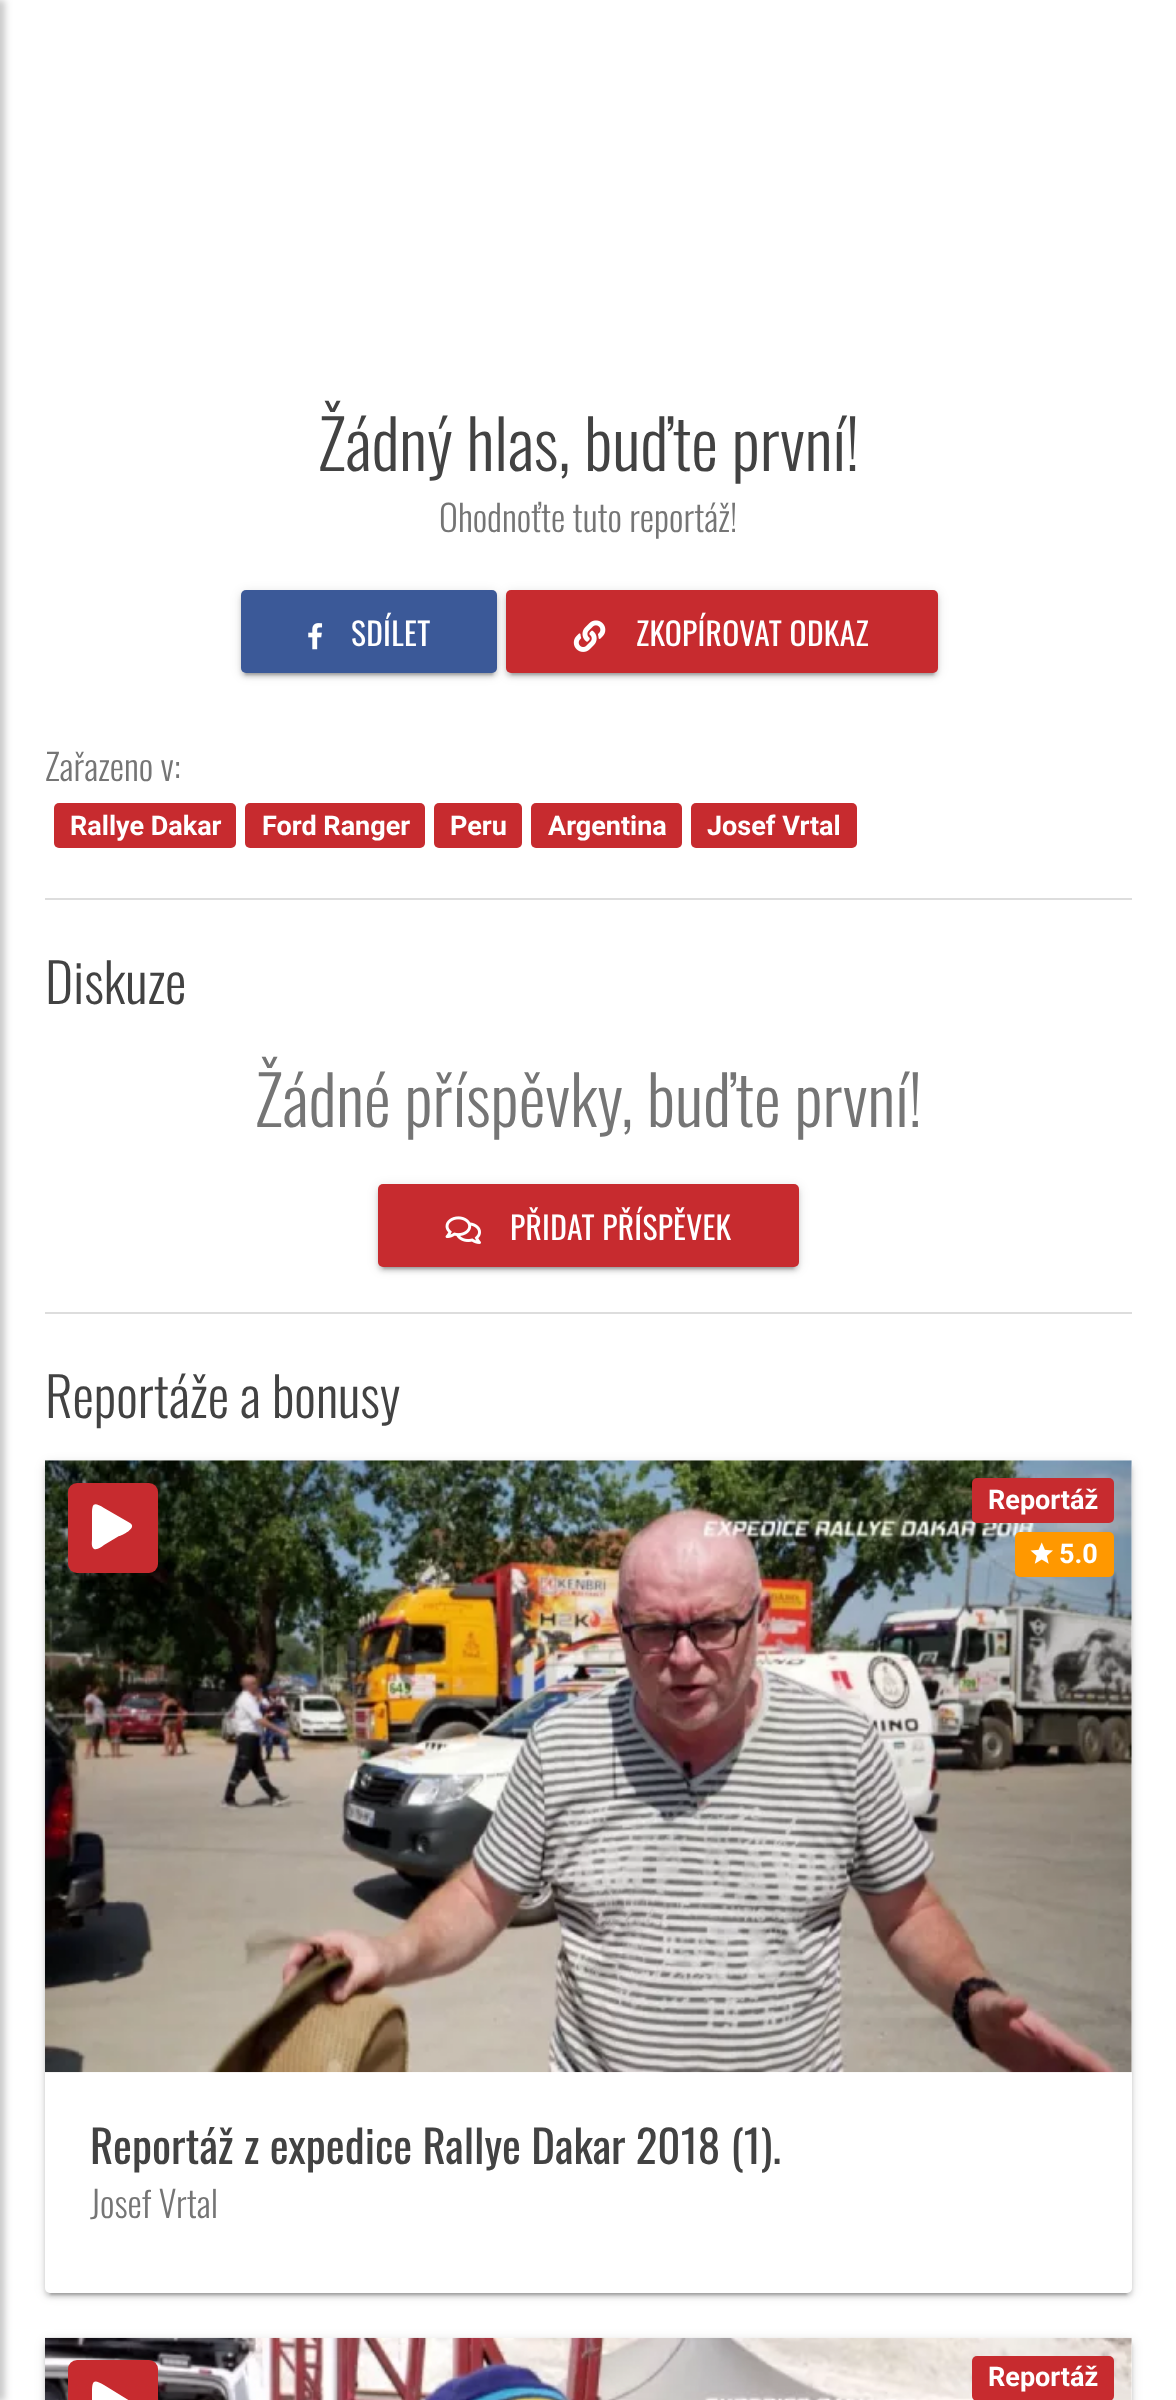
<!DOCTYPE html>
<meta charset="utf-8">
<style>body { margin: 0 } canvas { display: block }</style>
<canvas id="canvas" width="1176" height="2400"></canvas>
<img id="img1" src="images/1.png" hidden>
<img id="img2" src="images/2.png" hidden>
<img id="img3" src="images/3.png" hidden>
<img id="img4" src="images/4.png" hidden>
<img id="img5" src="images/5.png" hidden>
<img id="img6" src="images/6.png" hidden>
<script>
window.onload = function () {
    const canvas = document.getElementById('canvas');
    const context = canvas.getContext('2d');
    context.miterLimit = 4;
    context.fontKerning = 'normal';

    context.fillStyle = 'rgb(255, 255, 255)';
    context.fillRect(0, 0, 1176, 2400);
    context.fillStyle = 'rgba(0, 0, 0, 0.21)';
    context.filter = 'blur(3.5px)';
    context.beginPath();
    context.rect(-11, 0, 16, 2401);
    context.fill();
    context.filter = 'none';
    context.fillStyle = 'rgba(0, 0, 0, 0.12)';
    context.filter = 'blur(5.5px)';
    context.beginPath();
    context.roundRect(241, 592, 256, 83, 5);
    context.fill();
    context.filter = 'none';
    context.fillStyle = 'rgba(0, 0, 0, 0.2)';
    context.filter = 'blur(1px)';
    context.beginPath();
    context.rect(245, 601, 248, 74);
    context.fill();
    context.filter = 'none';
    context.fillStyle = 'rgba(0, 0, 0, 0.14)';
    context.filter = 'blur(2px)';
    context.beginPath();
    context.roundRect(241, 594, 256, 83, 5);
    context.fill();
    context.filter = 'none';
    context.fillStyle = 'rgb(59, 89, 152)';
    context.beginPath();
    context.roundRect(241, 590, 256, 83, 5);
    context.fill();
    context.drawImage(document.getElementById('img1'), 308, 623, 15, 27);
    context.fillStyle = 'rgba(0, 0, 0, 0.12)';
    context.filter = 'blur(5.5px)';
    context.beginPath();
    context.roundRect(506, 592, 432, 83, 5);
    context.fill();
    context.filter = 'none';
    context.fillStyle = 'rgba(0, 0, 0, 0.2)';
    context.filter = 'blur(1px)';
    context.beginPath();
    context.rect(511, 601, 423, 74);
    context.fill();
    context.filter = 'none';
    context.fillStyle = 'rgba(0, 0, 0, 0.14)';
    context.filter = 'blur(2px)';
    context.beginPath();
    context.roundRect(506, 594, 432, 83, 5);
    context.fill();
    context.filter = 'none';
    context.fillStyle = 'rgb(199, 43, 47)';
    context.beginPath();
    context.roundRect(506, 590, 432, 83, 5);
    context.fill();
    context.drawImage(document.getElementById('img2'), 573, 620, 33, 32);
    context.beginPath();
    context.roundRect(54, 803, 182, 45, 5);
    context.fill();
    context.beginPath();
    context.roundRect(245, 803, 180, 45, 5);
    context.fill();
    context.beginPath();
    context.roundRect(434, 803, 88, 45, 5);
    context.fill();
    context.beginPath();
    context.roundRect(531, 803, 151, 45, 5);
    context.fill();
    context.beginPath();
    context.roundRect(691, 803, 166, 45, 5);
    context.fill();
    context.fillStyle = 'rgb(221, 221, 221)';
    context.fillRect(45, 898, 1087, 2);
    context.fillStyle = 'rgba(0, 0, 0, 0.12)';
    context.filter = 'blur(5.5px)';
    context.beginPath();
    context.roundRect(378, 1186, 421, 83, 5);
    context.fill();
    context.filter = 'none';
    context.fillStyle = 'rgba(0, 0, 0, 0.2)';
    context.filter = 'blur(1px)';
    context.beginPath();
    context.rect(383, 1195, 411, 74);
    context.fill();
    context.filter = 'none';
    context.fillStyle = 'rgba(0, 0, 0, 0.14)';
    context.filter = 'blur(2px)';
    context.beginPath();
    context.roundRect(378, 1188, 421, 83, 5);
    context.fill();
    context.filter = 'none';
    context.fillStyle = 'rgb(199, 43, 47)';
    context.beginPath();
    context.roundRect(378, 1184, 421, 83, 5);
    context.fill();
    context.drawImage(document.getElementById('img3'), 445, 1216, 36, 28);
    context.fillStyle = 'rgb(221, 221, 221)';
    context.fillRect(45, 1312, 1087, 2);
    context.fillStyle = 'rgba(0, 0, 0, 0.12)';
    context.filter = 'blur(5.5px)';
    context.beginPath();
    context.roundRect(45, 1463, 1087, 832, 5);
    context.fill();
    context.filter = 'none';
    context.fillStyle = 'rgba(0, 0, 0, 0.2)';
    context.filter = 'blur(1px)';
    context.beginPath();
    context.rect(50, 1472, 1077, 823);
    context.fill();
    context.filter = 'none';
    context.fillStyle = 'rgba(0, 0, 0, 0.14)';
    context.filter = 'blur(2px)';
    context.beginPath();
    context.roundRect(45, 1465, 1087, 832, 5);
    context.fill();
    context.filter = 'none';
    context.fillStyle = 'rgb(255, 255, 255)';
    context.beginPath();
    context.roundRect(45, 1460, 1087, 833, 5);
    context.fill();
    context.drawImage(document.getElementById('img4'), 45, 1460, 1087, 613);
    context.fillStyle = 'rgb(199, 43, 47)';
    context.beginPath();
    context.roundRect(68, 1483, 90, 90, 9);
    context.fill();
    context.fillStyle = 'rgb(255, 255, 255)';
    context.beginPath();
    context.moveTo(130, 1523);
    context.bezierCurveTo(138, 1528, 121, 1536, 119, 1536);
    context.lineTo(104, 1545);
    context.bezierCurveTo(101, 1547, 98, 1550, 94, 1549);
    context.bezierCurveTo(91, 1547, 92, 1542, 92, 1539);
    context.lineTo(92, 1514);
    context.bezierCurveTo(92, 1503, 94, 1502, 104, 1508);
    context.closePath();
    context.fill();
    context.fillStyle = 'rgb(199, 43, 47)';
    context.beginPath();
    context.roundRect(972, 1478, 142, 45, 5);
    context.fill();
    context.fillStyle = 'rgb(255, 152, 0)';
    context.beginPath();
    context.roundRect(1015, 1532, 99, 45, 5);
    context.fill();
    context.drawImage(document.getElementById('img5'), 1030, 1542, 23, 22);
    context.fillStyle = 'rgba(0, 0, 0, 0.12)';
    context.filter = 'blur(5.5px)';
    context.beginPath();
    context.roundRect(45, 2340, 1087, 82, 5);
    context.fill();
    context.filter = 'none';
    context.fillStyle = 'rgba(0, 0, 0, 0.14)';
    context.filter = 'blur(2px)';
    context.beginPath();
    context.roundRect(45, 2342, 1087, 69, 5);
    context.fill();
    context.filter = 'none';
    context.fillStyle = 'rgb(255, 255, 255)';
    context.beginPath();
    context.roundRect(45, 2338, 1087, 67, 5);
    context.fill();
    context.drawImage(document.getElementById('img6'), 45, 2337, 1087, 63);
    context.fillStyle = 'rgb(199, 43, 47)';
    context.beginPath();
    context.roundRect(68, 2360, 90, 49, 9);
    context.fill();
    context.fillStyle = 'rgb(255, 255, 255)';
    context.beginPath();
    context.moveTo(130, 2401);
    context.bezierCurveTo(138, 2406, 121, 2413, 119, 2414);
    context.lineTo(104, 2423);
    context.bezierCurveTo(101, 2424, 98, 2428, 94, 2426);
    context.bezierCurveTo(91, 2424, 92, 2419, 92, 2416);
    context.lineTo(92, 2392);
    context.bezierCurveTo(92, 2380, 94, 2379, 104, 2385);
    context.closePath();
    context.fill();
    context.fillStyle = 'rgb(199, 43, 47)';
    context.beginPath();
    context.roundRect(972, 2356, 142, 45, 5);
    context.fill();
    context.font = '300 67.5px Oswald';
    context.fillStyle = 'rgb(66, 66, 66)';
    context.fillText('Žádný hlas, buďte první!', 318, 471);
    context.font = '300 36px Oswald';
    context.fillStyle = 'rgb(117, 117, 117)';
    context.fillText('Ohodnoťte tuto reportáž!', 439, 532);
    context.letterSpacing = '0.3px';
    context.font = '31.5px Oswald';
    context.fillStyle = 'rgb(255, 255, 255)';
    context.fillText('SDÍLET', 351, 646);
    context.fillText('ZKOPÍROVAT ODKAZ', 636, 646);
    context.letterSpacing = '0px';
    context.font = '300 36px Oswald';
    context.fillStyle = 'rgb(117, 117, 117)';
    context.fillText('Zařazeno v:', 45, 781);
    context.font = 'bold 27px Roboto';
    context.fillStyle = 'rgb(255, 255, 255)';
    context.fillText('Rallye Dakar', 70, 835);
    context.fillText('Ford Ranger', 262, 835);
    context.fillText('Peru', 450, 835);
    context.fillText('Argentina', 548, 835);
    context.fillText('Josef Vrtal', 707, 835);
    context.font = '300 54px Oswald';
    context.fillStyle = 'rgb(66, 66, 66)';
    context.fillText('Diskuze', 45, 1004);
    context.font = '300 67.5px Oswald';
    context.fillStyle = 'rgb(117, 117, 117)';
    context.fillText('Žádné příspěvky, buďte první!', 255, 1127);
    context.letterSpacing = '0.3px';
    context.font = '31.5px Oswald';
    context.fillStyle = 'rgb(255, 255, 255)';
    context.fillText('PŘIDAT PŘÍSPĚVEK', 510, 1240);
    context.letterSpacing = '0px';
    context.font = '300 54px Oswald';
    context.fillStyle = 'rgb(66, 66, 66)';
    context.fillText('Reportáže a bonusy', 45, 1418);
    context.font = 'bold 27px Roboto';
    context.fillStyle = 'rgb(255, 255, 255)';
    context.fillText('Reportáž', 988, 1509);
    context.fillText('5.0', 1059, 1563);
    context.font = '45px Oswald';
    context.fillStyle = 'rgb(66, 66, 66)';
    context.fillText('Reportáž z expedice Rallye Dakar 2018 (1).', 90, 2164);
    context.font = '300 36px Oswald';
    context.fillStyle = 'rgb(117, 117, 117)';
    context.fillText('Josef Vrtal', 90, 2218);
    context.font = 'bold 27px Roboto';
    context.fillStyle = 'rgb(255, 255, 255)';
    context.fillText('Reportáž', 988, 2386);
};
</script>
